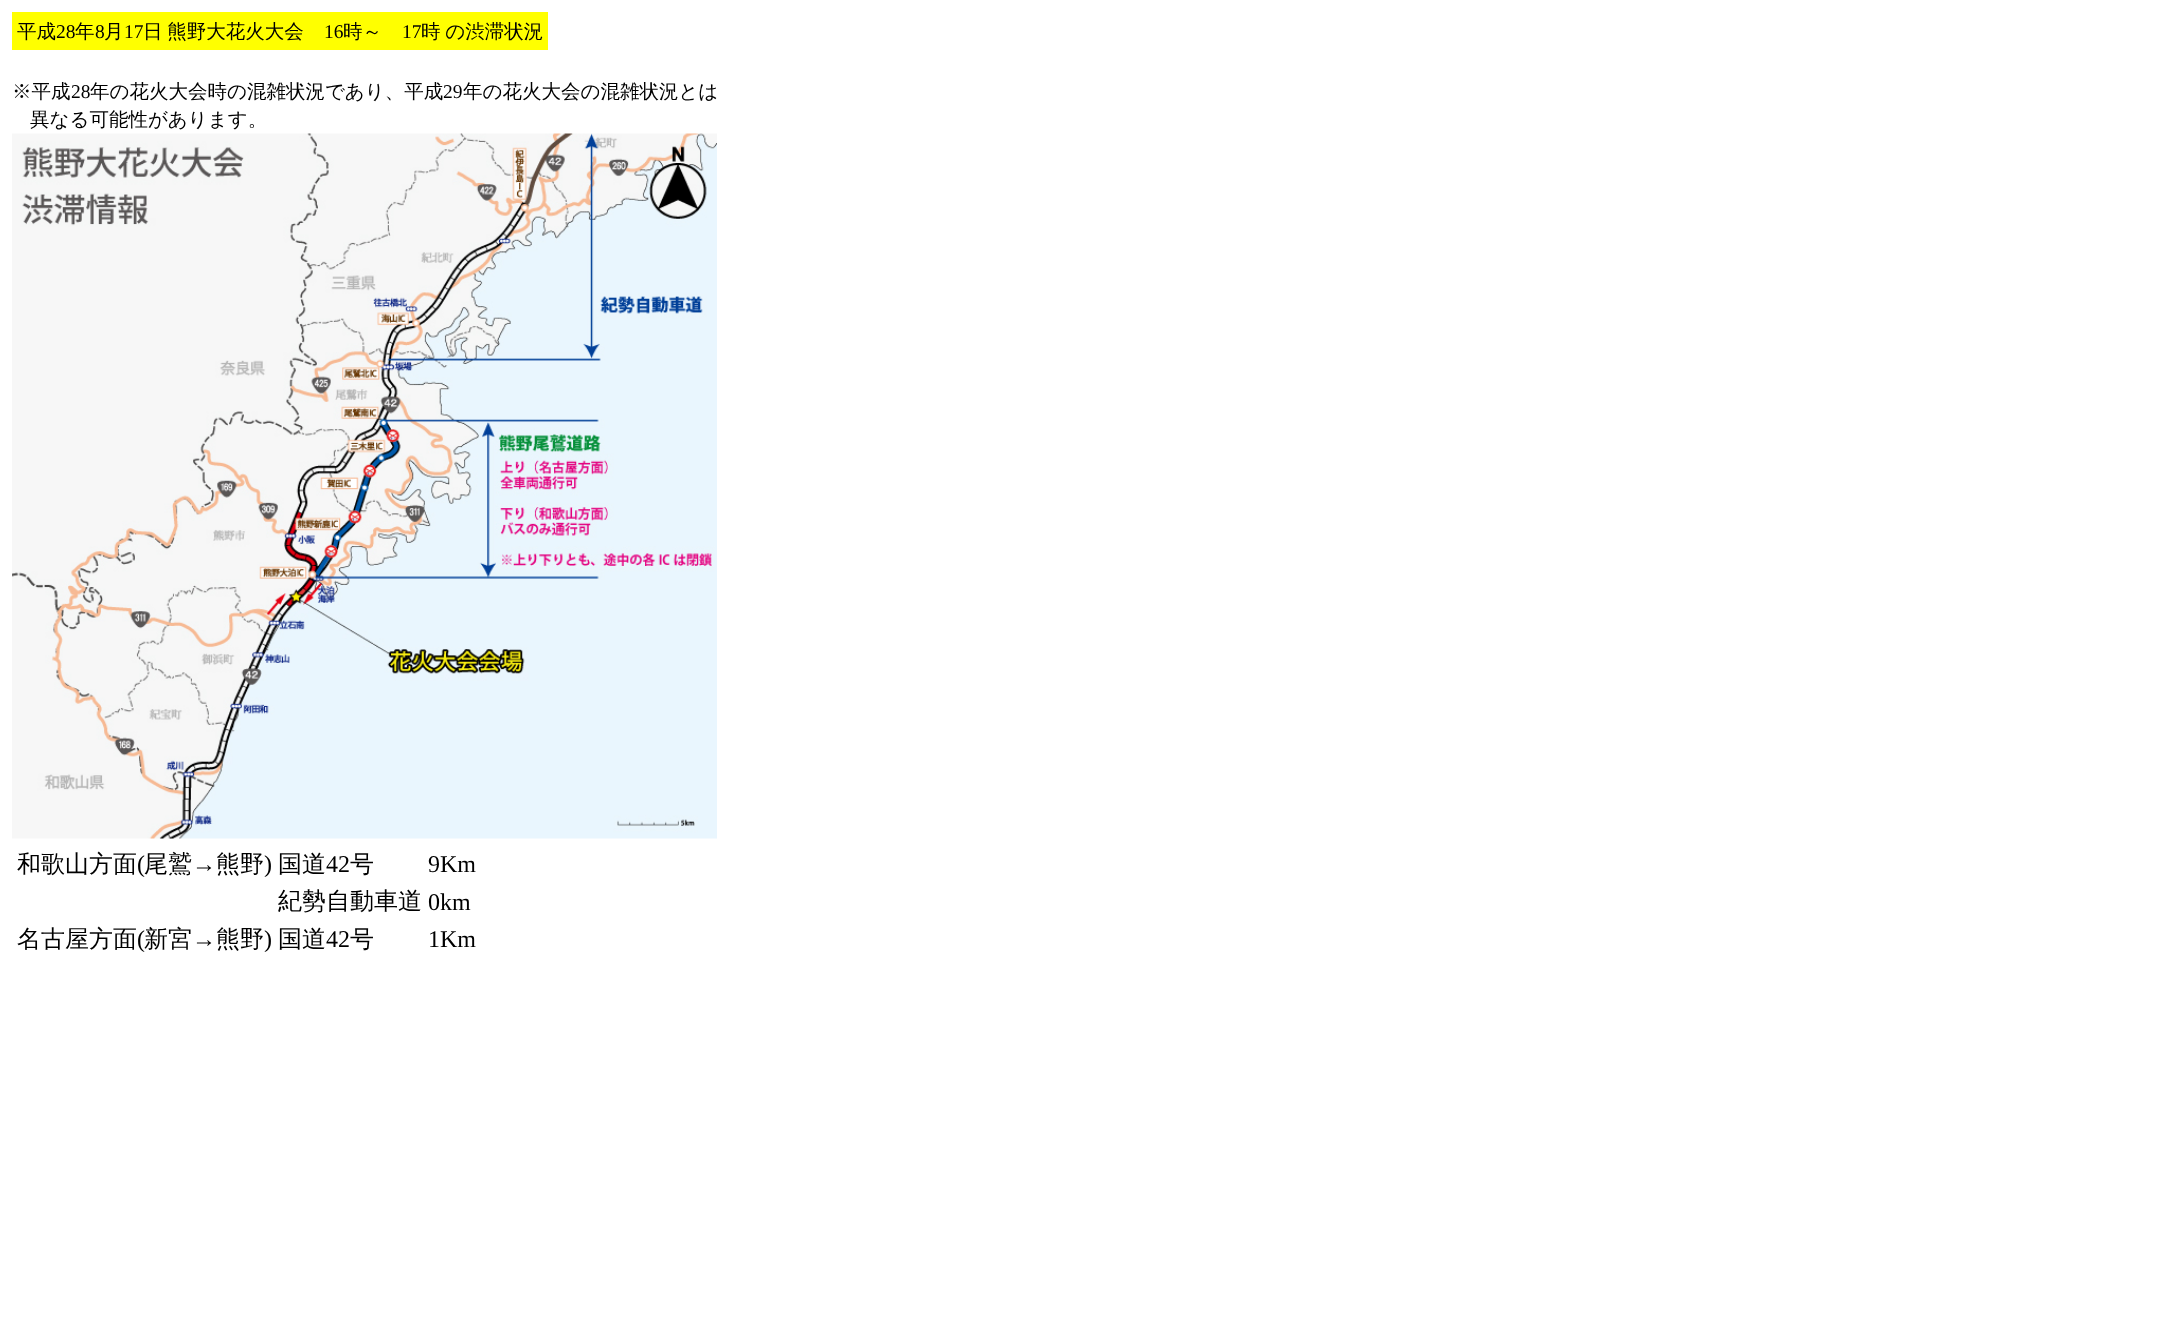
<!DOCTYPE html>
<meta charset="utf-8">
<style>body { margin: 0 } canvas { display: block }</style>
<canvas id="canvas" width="2170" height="1334"></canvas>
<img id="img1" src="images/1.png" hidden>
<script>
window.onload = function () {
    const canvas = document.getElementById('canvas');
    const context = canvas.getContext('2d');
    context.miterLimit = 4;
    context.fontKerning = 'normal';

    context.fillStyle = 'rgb(255, 255, 255)';
    context.fillRect(0, 0, 2170, 1334);
    context.fillStyle = 'rgb(255, 255, 0)';
    context.fillRect(12, 12, 536, 38);
    context.drawImage(document.getElementById('img1'), 12, 133, 705, 706);
    context.font = '500 19.5px WenQuanYi Zen Hei';
    context.fillStyle = 'rgb(0, 0, 0)';
    context.fillText('平成', 17, 38);
    context.font = '19.5px Liberation Serif';
    context.fillText('28', 56, 38);
    context.font = '500 19.5px WenQuanYi Zen Hei';
    context.fillText('年', 75, 38);
    context.font = '19.5px Liberation Serif';
    context.fillText('8', 95, 38);
    context.font = '500 19.5px WenQuanYi Zen Hei';
    context.fillText('月', 104, 38);
    context.font = '19.5px Liberation Serif';
    context.fillText('17', 124, 38);
    context.wordSpacing = '-1px';
    context.font = '500 19.5px WenQuanYi Zen Hei';
    context.fillText('日 熊野大花火大会', 143, 38);
    context.wordSpacing = '0px';
    context.font = '19.5px Liberation Serif';
    context.fillText('16', 324, 38);
    context.font = '500 19.5px WenQuanYi Zen Hei';
    context.fillText('時～', 343, 38);
    context.font = '19.5px Liberation Serif';
    context.fillText('17', 402, 38);
    context.wordSpacing = '-1px';
    context.font = '500 19.5px WenQuanYi Zen Hei';
    context.fillText('時 の渋滞状況', 421, 38);
    context.wordSpacing = '0px';
    context.fillText('※平成', 12, 98);
    context.font = '19.5px Liberation Serif';
    context.fillText('28', 71, 98);
    context.font = '500 19.5px WenQuanYi Zen Hei';
    context.fillText('年の花火大会時の混雑状況であり、平成', 90, 98);
    context.font = '19.5px Liberation Serif';
    context.fillText('29', 443, 98);
    context.font = '500 19.5px WenQuanYi Zen Hei';
    context.fillText('年の花火大会の混雑状況とは', 463, 98);
    context.fillText('異なる可能性があります。', 30, 126);
    context.font = '500 24px WenQuanYi Zen Hei';
    context.fillText('和歌山方面', 17, 872);
    context.font = '24px Liberation Serif';
    context.fillText('(', 137, 872);
    context.font = '500 24px WenQuanYi Zen Hei';
    context.fillText('尾鷲', 144, 872);
    context.font = '24px Liberation Serif';
    context.fillText('→', 192, 872);
    context.font = '500 24px WenQuanYi Zen Hei';
    context.fillText('熊野', 216, 872);
    context.font = '24px Liberation Serif';
    context.fillText(')', 264, 872);
    context.font = '500 24px WenQuanYi Zen Hei';
    context.fillText('国道', 278, 872);
    context.font = '24px Liberation Serif';
    context.fillText('42', 326, 872);
    context.font = '500 24px WenQuanYi Zen Hei';
    context.fillText('号', 350, 872);
    context.font = '24px Liberation Serif';
    context.fillText('9Km', 428, 872);
    context.font = '500 24px WenQuanYi Zen Hei';
    context.fillText('紀勢自動車道', 278, 909);
    context.font = '24px Liberation Serif';
    context.fillText('0km', 428, 910);
    context.font = '500 24px WenQuanYi Zen Hei';
    context.fillText('名古屋方面', 17, 947);
    context.font = '24px Liberation Serif';
    context.fillText('(', 137, 947);
    context.font = '500 24px WenQuanYi Zen Hei';
    context.fillText('新宮', 144, 947);
    context.font = '24px Liberation Serif';
    context.fillText('→', 192, 947);
    context.font = '500 24px WenQuanYi Zen Hei';
    context.fillText('熊野', 216, 947);
    context.font = '24px Liberation Serif';
    context.fillText(')', 264, 947);
    context.font = '500 24px WenQuanYi Zen Hei';
    context.fillText('国道', 278, 947);
    context.font = '24px Liberation Serif';
    context.fillText('42', 326, 947);
    context.font = '500 24px WenQuanYi Zen Hei';
    context.fillText('号', 350, 947);
    context.font = '24px Liberation Serif';
    context.fillText('1Km', 428, 947);
};
</script>
